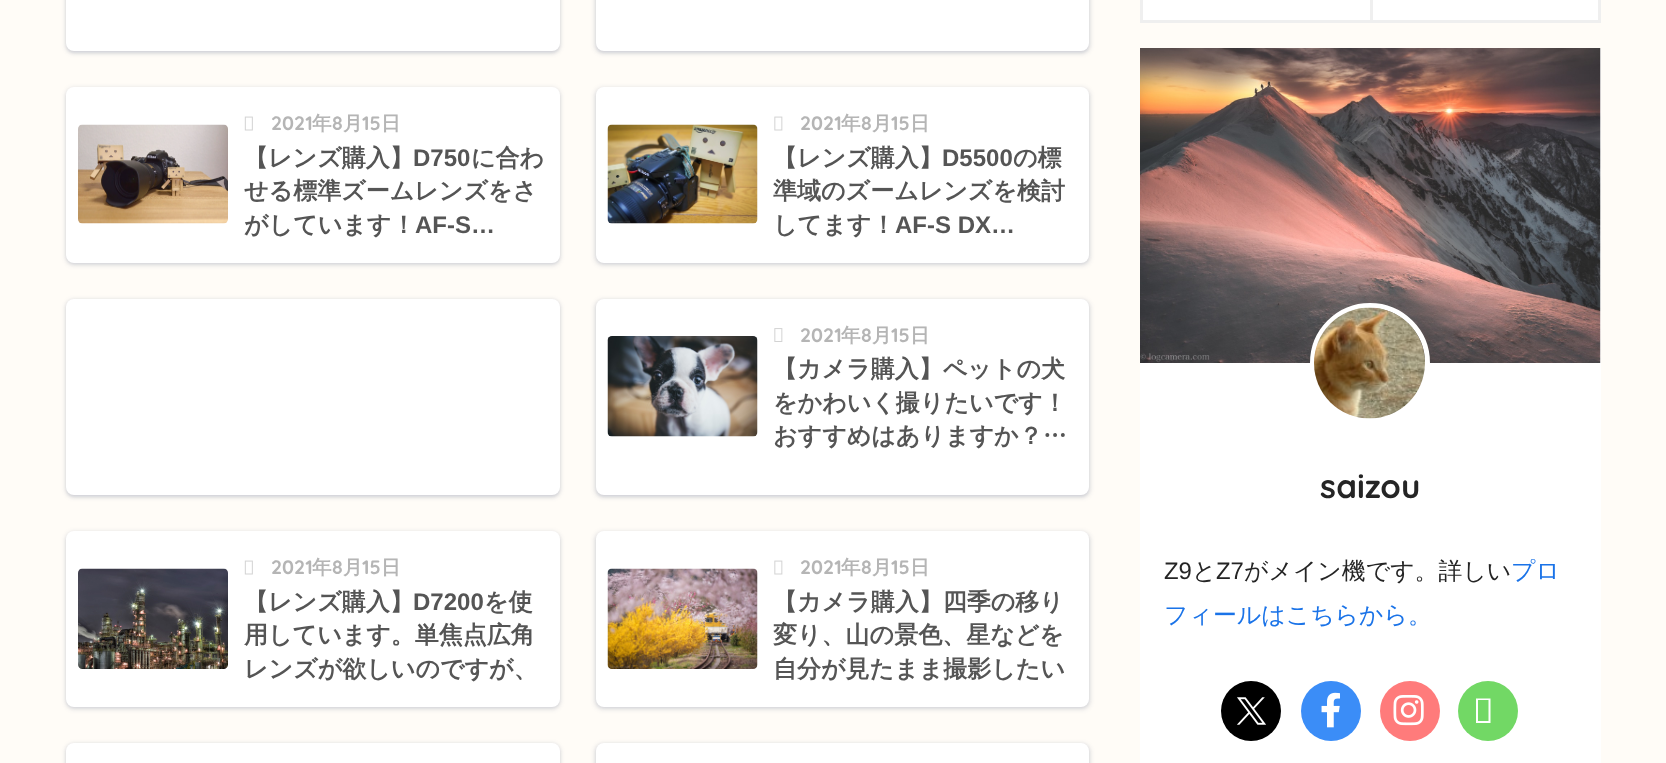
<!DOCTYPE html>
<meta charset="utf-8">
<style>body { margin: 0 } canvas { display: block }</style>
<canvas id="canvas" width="1666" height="763"></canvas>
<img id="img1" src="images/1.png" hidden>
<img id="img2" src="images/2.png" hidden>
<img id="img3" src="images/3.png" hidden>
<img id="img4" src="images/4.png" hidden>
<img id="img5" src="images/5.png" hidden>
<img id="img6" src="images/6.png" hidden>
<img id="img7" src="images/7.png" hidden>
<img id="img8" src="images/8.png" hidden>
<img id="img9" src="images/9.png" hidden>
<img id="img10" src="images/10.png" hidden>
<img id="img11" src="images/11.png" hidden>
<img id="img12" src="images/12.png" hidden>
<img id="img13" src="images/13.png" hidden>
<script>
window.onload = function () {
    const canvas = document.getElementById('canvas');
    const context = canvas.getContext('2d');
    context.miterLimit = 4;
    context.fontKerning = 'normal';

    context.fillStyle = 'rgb(255, 252, 247)';
    context.fillRect(0, 0, 1666, 763);
    context.fillStyle = 'rgba(24, 44, 84, 0.1)';
    context.filter = 'blur(2px)';
    context.beginPath();
    context.roundRect(65, -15, 496, 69, 9);
    context.fill();
    context.filter = 'none';
    context.filter = 'blur(1.5px)';
    context.beginPath();
    context.roundRect(66, -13, 494, 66, 8);
    context.fill();
    context.filter = 'none';
    context.fillStyle = 'rgb(255, 255, 255)';
    context.beginPath();
    context.roundRect(66, -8, 494, 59, 8);
    context.fill();
    context.fillStyle = 'rgba(24, 44, 84, 0.1)';
    context.filter = 'blur(2px)';
    context.beginPath();
    context.roundRect(594, -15, 497, 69, 9);
    context.fill();
    context.filter = 'none';
    context.filter = 'blur(1.5px)';
    context.beginPath();
    context.roundRect(596, -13, 493, 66, 8);
    context.fill();
    context.filter = 'none';
    context.fillStyle = 'rgb(255, 255, 255)';
    context.beginPath();
    context.roundRect(596, -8, 493, 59, 8);
    context.fill();
    context.fillStyle = 'rgba(24, 44, 84, 0.1)';
    context.filter = 'blur(2px)';
    context.beginPath();
    context.roundRect(65, 87, 496, 179, 9);
    context.fill();
    context.filter = 'none';
    context.filter = 'blur(1.5px)';
    context.beginPath();
    context.roundRect(66, 89, 494, 175, 8);
    context.fill();
    context.filter = 'none';
    context.fillStyle = 'rgb(255, 255, 255)';
    context.beginPath();
    context.roundRect(66, 87, 494, 176, 8);
    context.fill();
    context.drawImage(document.getElementById('img1'), 78, 124, 150, 100);
    context.drawImage(document.getElementById('img2'), 244, 116, 9, 15);
    context.fillStyle = 'rgba(24, 44, 84, 0.1)';
    context.filter = 'blur(2px)';
    context.beginPath();
    context.roundRect(594, 87, 497, 179, 9);
    context.fill();
    context.filter = 'none';
    context.filter = 'blur(1.5px)';
    context.beginPath();
    context.roundRect(596, 89, 493, 175, 8);
    context.fill();
    context.filter = 'none';
    context.fillStyle = 'rgb(255, 255, 255)';
    context.beginPath();
    context.roundRect(596, 87, 493, 176, 8);
    context.fill();
    context.drawImage(document.getElementById('img3'), 607, 124, 151, 100);
    context.drawImage(document.getElementById('img4'), 774, 116, 9, 15);
    context.fillStyle = 'rgba(24, 44, 84, 0.1)';
    context.filter = 'blur(2px)';
    context.beginPath();
    context.roundRect(65, 299, 496, 199, 9);
    context.fill();
    context.filter = 'none';
    context.filter = 'blur(1.5px)';
    context.beginPath();
    context.roundRect(66, 300, 494, 197, 8);
    context.fill();
    context.filter = 'none';
    context.fillStyle = 'rgb(255, 255, 255)';
    context.beginPath();
    context.roundRect(66, 299, 494, 196, 8);
    context.fill();
    context.fillStyle = 'rgba(24, 44, 84, 0.1)';
    context.filter = 'blur(2px)';
    context.beginPath();
    context.roundRect(594, 299, 497, 199, 9);
    context.fill();
    context.filter = 'none';
    context.filter = 'blur(1.5px)';
    context.beginPath();
    context.roundRect(596, 300, 493, 197, 8);
    context.fill();
    context.filter = 'none';
    context.fillStyle = 'rgb(255, 255, 255)';
    context.beginPath();
    context.roundRect(596, 299, 493, 196, 8);
    context.fill();
    context.drawImage(document.getElementById('img5'), 607, 336, 151, 101);
    context.drawImage(document.getElementById('img6'), 774, 328, 9, 14);
    context.fillStyle = 'rgba(24, 44, 84, 0.1)';
    context.filter = 'blur(2px)';
    context.beginPath();
    context.roundRect(65, 531, 496, 179, 9);
    context.fill();
    context.filter = 'none';
    context.filter = 'blur(1.5px)';
    context.beginPath();
    context.roundRect(66, 533, 494, 175, 8);
    context.fill();
    context.filter = 'none';
    context.fillStyle = 'rgb(255, 255, 255)';
    context.beginPath();
    context.roundRect(66, 531, 494, 176, 8);
    context.fill();
    context.drawImage(document.getElementById('img7'), 78, 568, 150, 101);
    context.drawImage(document.getElementById('img2'), 244, 560, 9, 15);
    context.fillStyle = 'rgba(24, 44, 84, 0.1)';
    context.filter = 'blur(2px)';
    context.beginPath();
    context.roundRect(594, 531, 497, 179, 9);
    context.fill();
    context.filter = 'none';
    context.filter = 'blur(1.5px)';
    context.beginPath();
    context.roundRect(596, 533, 493, 175, 8);
    context.fill();
    context.filter = 'none';
    context.fillStyle = 'rgb(255, 255, 255)';
    context.beginPath();
    context.roundRect(596, 531, 493, 176, 8);
    context.fill();
    context.drawImage(document.getElementById('img8'), 607, 568, 151, 101);
    context.drawImage(document.getElementById('img4'), 774, 560, 9, 15);
    context.fillStyle = 'rgba(24, 44, 84, 0.1)';
    context.filter = 'blur(2px)';
    context.beginPath();
    context.roundRect(65, 743, 496, 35, 9);
    context.fill();
    context.filter = 'none';
    context.filter = 'blur(1.5px)';
    context.beginPath();
    context.roundRect(66, 744, 494, 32, 8);
    context.fill();
    context.filter = 'none';
    context.fillStyle = 'rgb(255, 255, 255)';
    context.beginPath();
    context.roundRect(66, 743, 494, 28, 8);
    context.fill();
    context.fillStyle = 'rgba(24, 44, 84, 0.1)';
    context.filter = 'blur(2px)';
    context.beginPath();
    context.roundRect(594, 743, 497, 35, 9);
    context.fill();
    context.filter = 'none';
    context.filter = 'blur(1.5px)';
    context.beginPath();
    context.roundRect(596, 744, 493, 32, 8);
    context.fill();
    context.filter = 'none';
    context.fillStyle = 'rgb(255, 255, 255)';
    context.beginPath();
    context.roundRect(596, 743, 493, 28, 8);
    context.fill();
    context.fillRect(1143, 0, 455, 20);
    context.fillStyle = 'rgb(239, 239, 239)';
    context.fillRect(1598, 0, 3, 23);
    context.fillRect(1140, 20, 461, 3);
    context.fillRect(1140, 0, 3, 23);
    context.fillRect(1370, 0, 3, 20);
    context.fillStyle = 'rgb(255, 255, 255)';
    context.fillRect(1140, 48, 461, 715);
    context.drawImage(document.getElementById('img9'), 1140, 48, 461, 315);
    context.beginPath();
    context.arc(1370, 363, 57.5, 0, 2 * Math.PI);
    context.strokeStyle = 'rgb(255, 255, 255)';
    context.lineWidth = 5;
    context.stroke();
    context.drawImage(document.getElementById('img10'), 1314, 307, 111, 112);
    context.fillStyle = 'rgb(0, 0, 0)';
    context.beginPath();
    context.arc(1251, 711, 30, 0, 2 * Math.PI);
    context.fill();
    context.drawImage(document.getElementById('img11'), 1237, 697, 29, 28);
    context.fillStyle = 'rgb(59, 141, 247)';
    context.beginPath();
    context.arc(1331, 711, 30, 0, 2 * Math.PI);
    context.fill();
    context.drawImage(document.getElementById('img12'), 1321, 692, 19, 36);
    context.fillStyle = 'rgb(255, 123, 123)';
    context.beginPath();
    context.arc(1410, 711, 30, 0, 2 * Math.PI);
    context.fill();
    context.drawImage(document.getElementById('img13'), 1393, 695, 31, 31);
    context.fillStyle = 'rgb(114, 216, 101)';
    context.beginPath();
    context.arc(1488, 711, 30, 0, 2 * Math.PI);
    context.fill();
    context.fillStyle = 'rgb(255, 255, 255)';
    context.beginPath();
    context.moveTo(1476, 723);
    context.lineTo(1476, 698.5);
    context.lineTo(1490.5, 698.5);
    context.lineTo(1490.5, 723);
    context.closePath();
    context.moveTo(1478, 721);
    context.lineTo(1488.5, 721);
    context.lineTo(1488.5, 700);
    context.lineTo(1478, 700);
    context.closePath();
    context.fill();
    context.font = 'bold 19.5px Quicksand';
    context.fillStyle = 'rgb(181, 181, 181)';
    context.fillText('2021', 271, 130);
    context.font = 'bold 19.5px WenQuanYi Zen Hei';
    context.fillText('年', 312, 130);
    context.font = 'bold 19.5px Quicksand';
    context.fillText('8', 332, 130);
    context.font = 'bold 19.5px WenQuanYi Zen Hei';
    context.fillText('月', 343, 130);
    context.font = 'bold 19.5px Quicksand';
    context.fillText('15', 362, 130);
    context.font = 'bold 19.5px WenQuanYi Zen Hei';
    context.fillText('日', 381, 130);
    context.font = 'bold 24px WenQuanYi Zen Hei';
    context.fillStyle = 'rgb(85, 85, 85)';
    context.fillText('【レンズ購入】', 244, 166);
    context.font = 'bold 24px Liberation Sans';
    context.fillText('D750', 413, 166);
    context.font = 'bold 24px WenQuanYi Zen Hei';
    context.fillText('に合わ', 471, 166);
    context.fillText('せる標準ズームレンズをさ', 244, 199);
    context.fillText('がしています！', 244, 233);
    context.font = 'bold 24px Liberation Sans';
    context.fillText('AF-S…', 415, 233);
    context.font = 'bold 19.5px Quicksand';
    context.fillStyle = 'rgb(181, 181, 181)';
    context.fillText('2021', 800, 130);
    context.font = 'bold 19.5px WenQuanYi Zen Hei';
    context.fillText('年', 841, 130);
    context.font = 'bold 19.5px Quicksand';
    context.fillText('8', 861, 130);
    context.font = 'bold 19.5px WenQuanYi Zen Hei';
    context.fillText('月', 872, 130);
    context.font = 'bold 19.5px Quicksand';
    context.fillText('15', 891, 130);
    context.font = 'bold 19.5px WenQuanYi Zen Hei';
    context.fillText('日', 910, 130);
    context.font = 'bold 24px WenQuanYi Zen Hei';
    context.fillStyle = 'rgb(85, 85, 85)';
    context.fillText('【レンズ購入】', 773, 166);
    context.font = 'bold 24px Liberation Sans';
    context.fillText('D5500', 942, 166);
    context.font = 'bold 24px WenQuanYi Zen Hei';
    context.fillText('の標', 1013, 166);
    context.fillText('準域のズームレンズを検討', 773, 199);
    context.fillText('してます！', 773, 233);
    context.font = 'bold 24px Liberation Sans';
    context.fillText('AF-S DX…', 895, 233);
    context.font = 'bold 19.5px Quicksand';
    context.fillStyle = 'rgb(181, 181, 181)';
    context.fillText('2021', 800, 342);
    context.font = 'bold 19.5px WenQuanYi Zen Hei';
    context.fillText('年', 841, 342);
    context.font = 'bold 19.5px Quicksand';
    context.fillText('8', 861, 342);
    context.font = 'bold 19.5px WenQuanYi Zen Hei';
    context.fillText('月', 872, 342);
    context.font = 'bold 19.5px Quicksand';
    context.fillText('15', 891, 342);
    context.font = 'bold 19.5px WenQuanYi Zen Hei';
    context.fillText('日', 910, 342);
    context.font = 'bold 24px WenQuanYi Zen Hei';
    context.fillStyle = 'rgb(85, 85, 85)';
    context.fillText('【カメラ購入】ペットの犬', 773, 377);
    context.fillText('をかわいく撮りたいです！', 773, 411);
    context.fillText('おすすめはありますか？…', 773, 444);
    context.font = 'bold 19.5px Quicksand';
    context.fillStyle = 'rgb(181, 181, 181)';
    context.fillText('2021', 271, 574);
    context.font = 'bold 19.5px WenQuanYi Zen Hei';
    context.fillText('年', 312, 574);
    context.font = 'bold 19.5px Quicksand';
    context.fillText('8', 332, 574);
    context.font = 'bold 19.5px WenQuanYi Zen Hei';
    context.fillText('月', 343, 574);
    context.font = 'bold 19.5px Quicksand';
    context.fillText('15', 362, 574);
    context.font = 'bold 19.5px WenQuanYi Zen Hei';
    context.fillText('日', 381, 574);
    context.font = 'bold 24px WenQuanYi Zen Hei';
    context.fillStyle = 'rgb(85, 85, 85)';
    context.fillText('【レンズ購入】', 244, 610);
    context.font = 'bold 24px Liberation Sans';
    context.fillText('D7200', 413, 610);
    context.font = 'bold 24px WenQuanYi Zen Hei';
    context.fillText('を使', 484, 610);
    context.fillText('用しています。単焦点広角', 244, 643);
    context.fillText('レンズが欲しいのですが、', 244, 677);
    context.font = 'bold 19.5px Quicksand';
    context.fillStyle = 'rgb(181, 181, 181)';
    context.fillText('2021', 800, 574);
    context.font = 'bold 19.5px WenQuanYi Zen Hei';
    context.fillText('年', 841, 574);
    context.font = 'bold 19.5px Quicksand';
    context.fillText('8', 861, 574);
    context.font = 'bold 19.5px WenQuanYi Zen Hei';
    context.fillText('月', 872, 574);
    context.font = 'bold 19.5px Quicksand';
    context.fillText('15', 891, 574);
    context.font = 'bold 19.5px WenQuanYi Zen Hei';
    context.fillText('日', 910, 574);
    context.font = 'bold 24px WenQuanYi Zen Hei';
    context.fillStyle = 'rgb(85, 85, 85)';
    context.fillText('【カメラ購入】四季の移り', 773, 610);
    context.fillText('変り、山の景色、星などを', 773, 643);
    context.fillText('自分が見たまま撮影したい', 773, 677);
    context.font = 'bold 33px Quicksand';
    context.fillStyle = 'rgb(37, 37, 37)';
    context.fillText('saizou', 1320, 498);
    context.font = '23.9px Liberation Sans';
    context.fillText('Z9', 1164, 579);
    context.font = '500 23.9px WenQuanYi Zen Hei';
    context.fillText('と', 1192, 579);
    context.font = '23.9px Liberation Sans';
    context.fillText('Z7', 1216, 579);
    context.font = '500 23.9px WenQuanYi Zen Hei';
    context.fillText('がメイン機です。詳しい', 1244, 579);
    context.fillStyle = 'rgb(26, 115, 232)';
    context.fillText('プロ', 1511, 579);
    context.fillText('フィールはこちらから。', 1164, 623);
};
</script>
